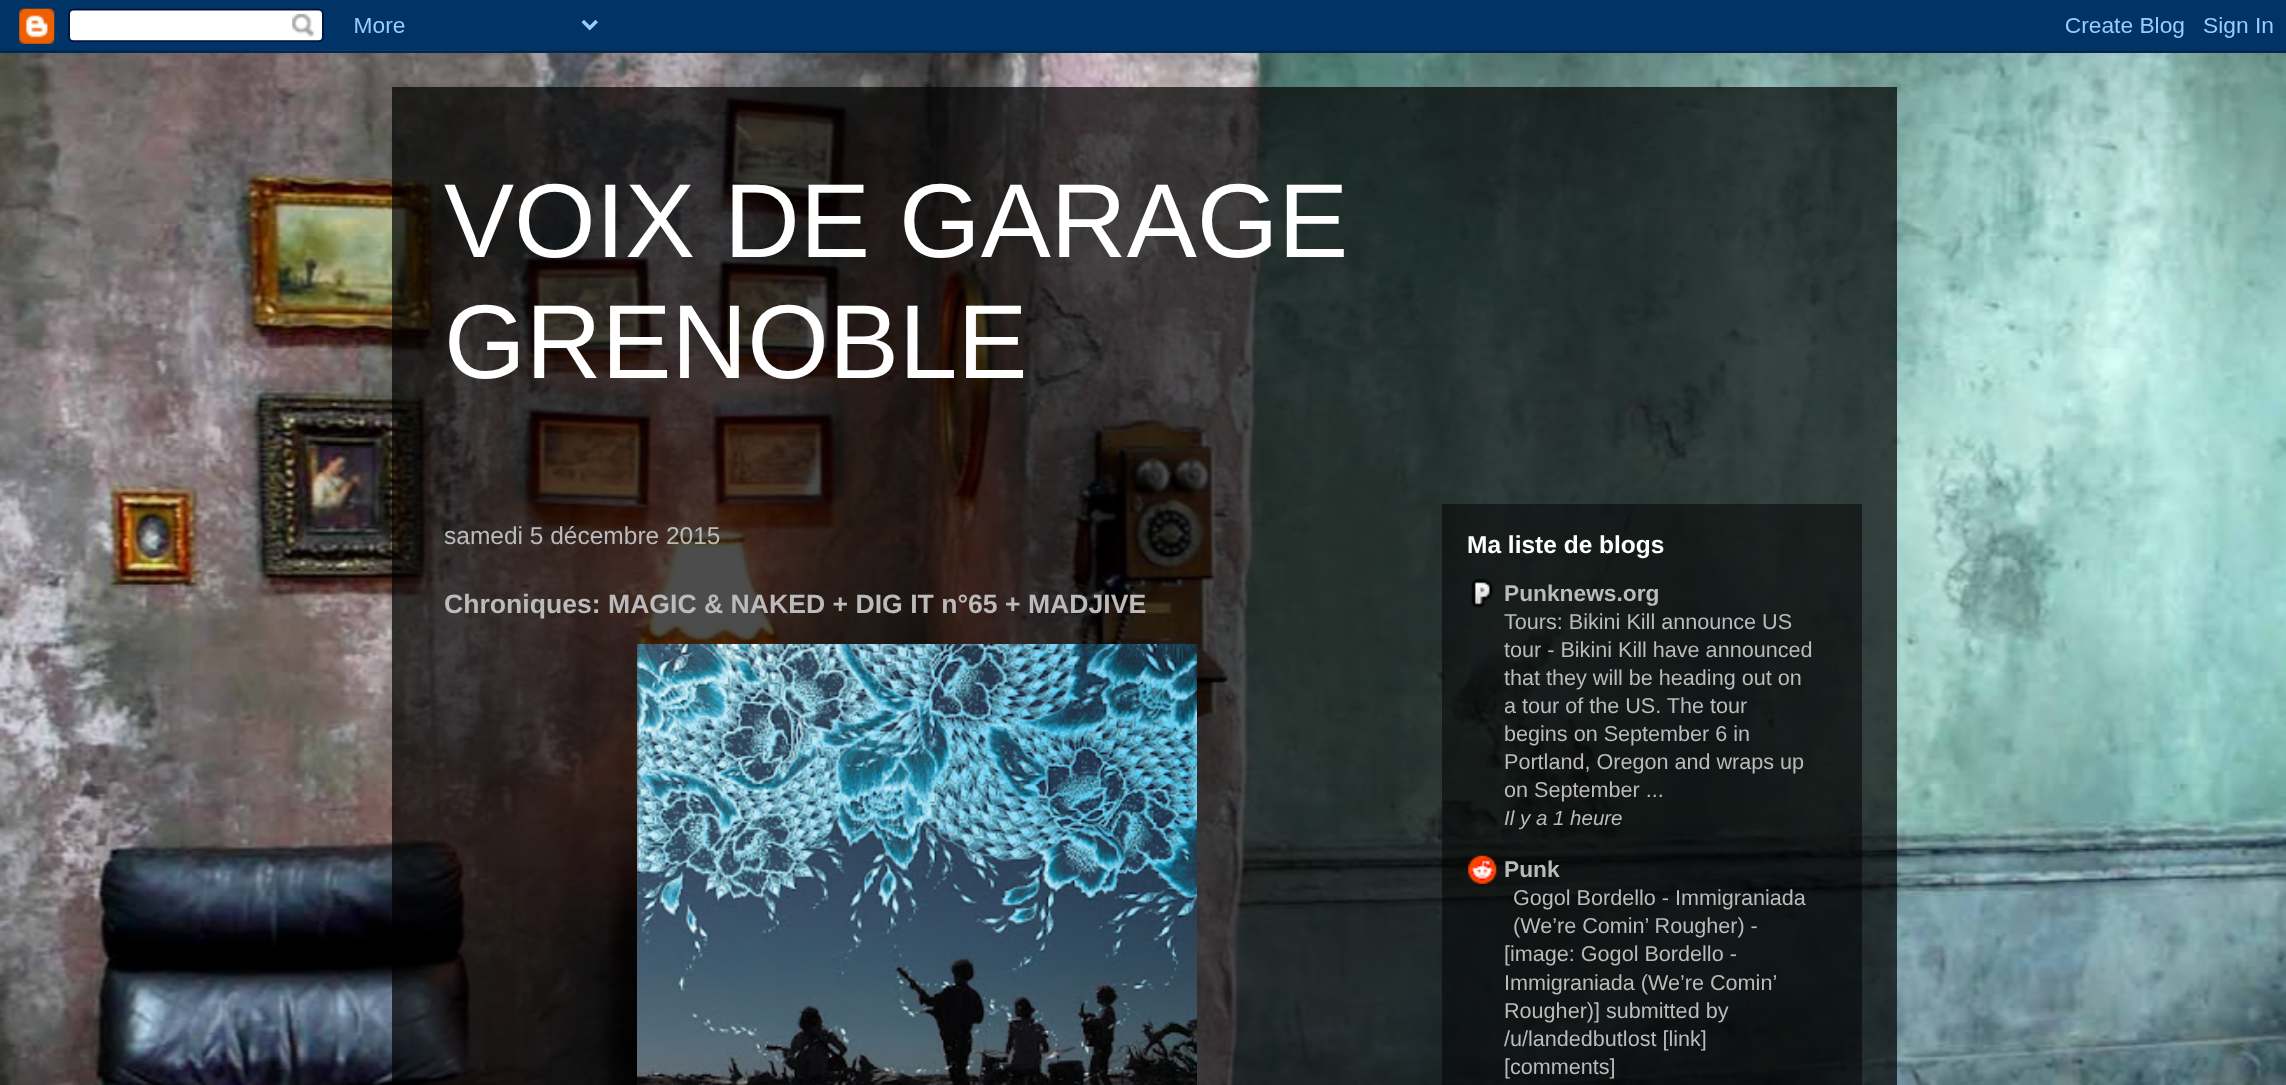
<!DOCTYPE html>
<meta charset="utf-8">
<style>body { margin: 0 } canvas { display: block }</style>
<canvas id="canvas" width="2286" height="1085"></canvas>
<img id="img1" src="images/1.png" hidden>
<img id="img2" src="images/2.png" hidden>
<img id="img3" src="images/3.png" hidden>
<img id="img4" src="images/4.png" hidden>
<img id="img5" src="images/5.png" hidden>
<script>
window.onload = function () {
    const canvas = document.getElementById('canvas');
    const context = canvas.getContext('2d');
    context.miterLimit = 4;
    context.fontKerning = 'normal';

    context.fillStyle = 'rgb(255, 255, 255)';
    context.fillRect(0, 0, 2286, 1085);
    context.drawImage(document.getElementById('img1'), 0, 50, 2286, 1035);
    context.drawImage(document.getElementById('img2'), 0, 0, 2286, 53);
    context.fillStyle = 'rgba(0, 0, 0, 0.7)';
    context.fillRect(392, 87, 1505, 998);
    context.fillStyle = 'rgba(0, 0, 0, 0.5)';
    context.fillRect(1442, 504, 420, 581);
    context.drawImage(document.getElementById('img3'), 637, 644, 560, 441);
    context.drawImage(document.getElementById('img4'), 1471, 579, 22, 29);
    context.drawImage(document.getElementById('img5'), 1468, 855, 29, 29);
    context.font = '105px Liberation Sans';
    context.fillStyle = 'rgb(255, 255, 255)';
    context.fillText('VOIX DE GARAGE', 444, 257);
    context.fillText('GRENOBLE', 444, 378);
    context.font = '24.5px Liberation Sans';
    context.fillStyle = 'rgb(187, 187, 187)';
    context.fillText('samedi 5 décembre 2015', 444, 544);
    context.font = 'bold 26.6px Liberation Sans';
    context.fillText('Chroniques: MAGIC & NAKED + DIG IT n°65 + MADJIVE', 444, 613);
    context.font = 'bold 24.5px Liberation Sans';
    context.fillStyle = 'rgb(255, 255, 255)';
    context.fillText('Ma liste de blogs', 1467, 553);
    context.font = 'bold 22.75px Liberation Sans';
    context.fillStyle = 'rgb(187, 187, 187)';
    context.fillText('Punknews.org', 1504, 601);
    context.font = '21.6px Liberation Sans';
    context.fillText('Tours: Bikini Kill announce US', 1504, 629);
    context.fillText('tour - Bikini Kill have announced', 1504, 657);
    context.fillText('that they will be heading out on', 1504, 685);
    context.fillText('a tour of the US. The tour', 1504, 713);
    context.fillText('begins on September 6 in', 1504, 741);
    context.fillText('Portland, Oregon and wraps up', 1504, 769);
    context.fillText('on September ...', 1504, 797);
    context.font = 'italic 20.5px Liberation Sans';
    context.fillText('Il y a 1 heure', 1504, 825);
    context.font = 'bold 22.75px Liberation Sans';
    context.fillText('Punk', 1504, 877);
    context.font = '21.6px Liberation Sans';
    context.fillText('Gogol Bordello - Immigraniada', 1513, 905);
    context.fillText('(We’re Comin’ Rougher) -', 1513, 933);
    context.fillText('[image: Gogol Bordello -', 1504, 961);
    context.fillText('Immigraniada (We’re Comin’', 1504, 990);
    context.fillText('Rougher)] submitted by', 1504, 1018);
    context.fillText('/u/landedbutlost [link]', 1504, 1046);
    context.fillText('[comments]', 1504, 1074);
};
</script>
